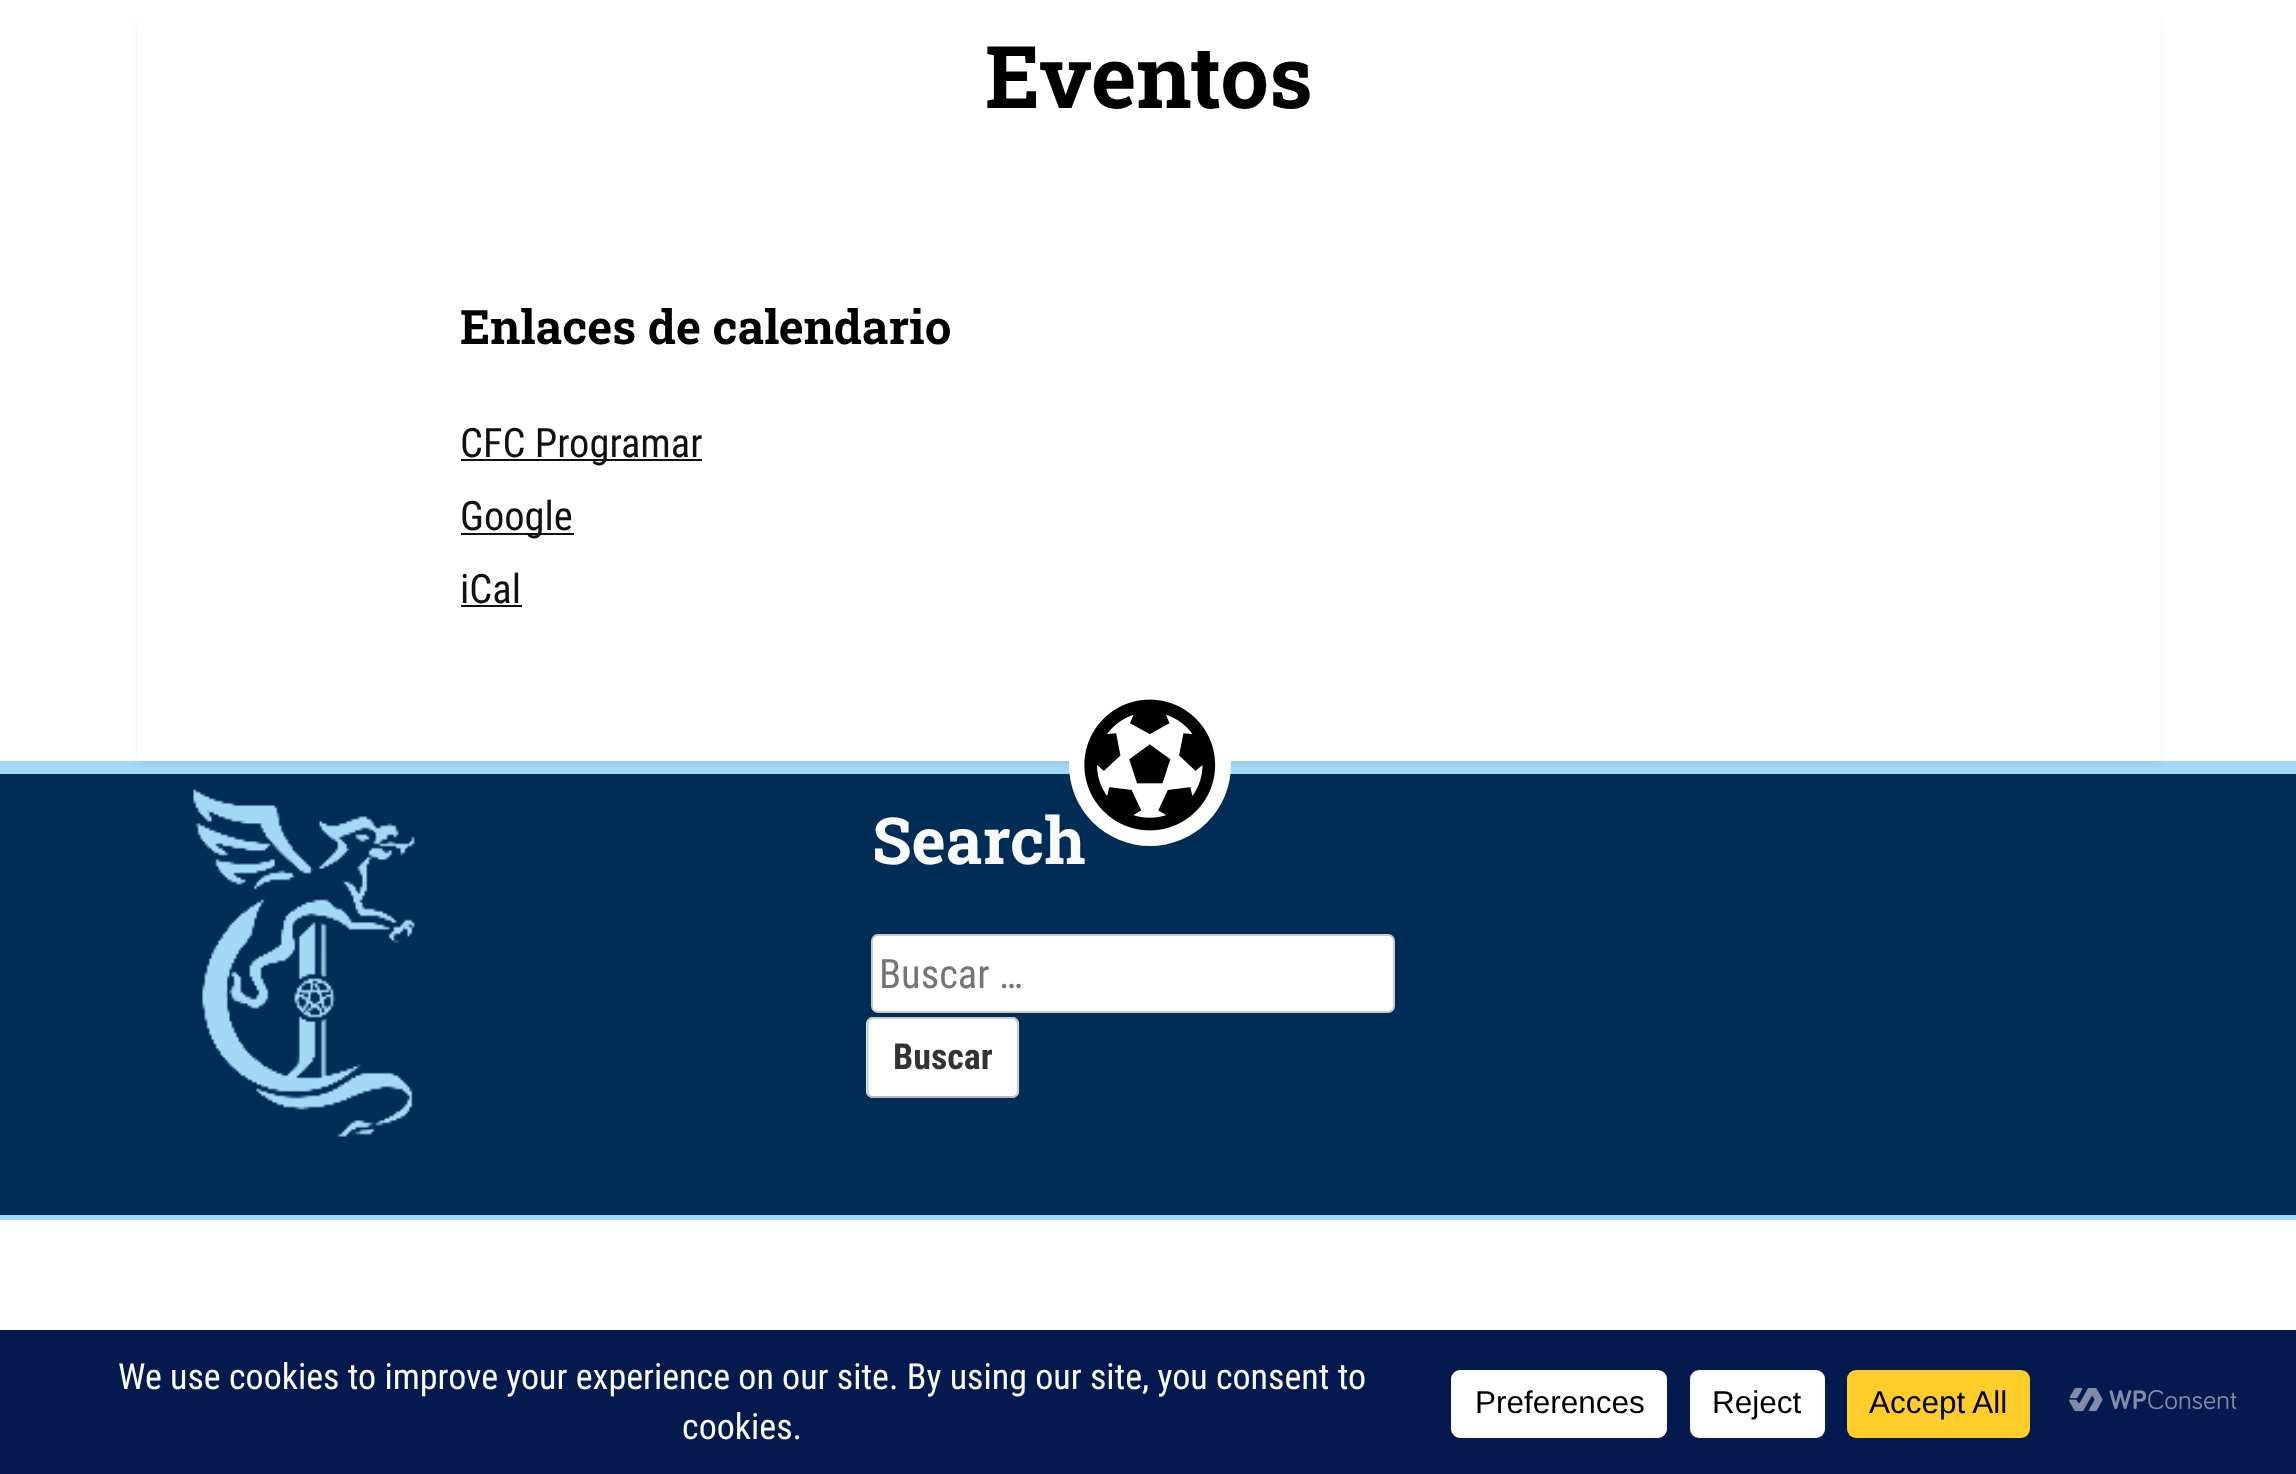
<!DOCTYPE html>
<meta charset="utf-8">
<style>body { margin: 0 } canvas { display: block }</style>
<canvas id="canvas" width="2296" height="1474"></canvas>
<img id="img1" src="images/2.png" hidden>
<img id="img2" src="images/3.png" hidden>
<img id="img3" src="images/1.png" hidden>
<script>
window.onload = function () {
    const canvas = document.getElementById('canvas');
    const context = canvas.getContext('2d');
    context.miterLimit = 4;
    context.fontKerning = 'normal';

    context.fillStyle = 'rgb(255, 255, 255)';
    context.fillRect(0, 0, 2296, 1474);
    context.fillStyle = 'rgb(0, 45, 86)';
    context.fillRect(0, 774, 2296, 441);
    context.fillStyle = 'rgb(163, 216, 247)';
    context.fillRect(0, 761, 2296, 13);
    context.fillStyle = 'rgba(0, 0, 0, 0.05)';
    context.filter = 'blur(3.5px)';
    context.beginPath();
    context.roundRect(137, 20, 2023, 745, 5);
    context.fill();
    context.filter = 'none';
    context.fillStyle = 'rgb(255, 255, 255)';
    context.beginPath();
    context.roundRect(137, 16, 2023, 745, 5);
    context.fill();
    context.fillStyle = 'rgb(17, 17, 17)';
    context.fillRect(461, 459, 241, 2);
    context.fillRect(461, 533, 113, 2);
    context.fillRect(461, 605, 61, 2);
    context.fillStyle = 'rgb(163, 216, 247)';
    context.fillRect(0, 1215, 2296, 5);
    context.drawImage(document.getElementById('img1'), 193, 789, 222, 348);
    context.fillStyle = 'rgb(255, 255, 255)';
    context.beginPath();
    context.roundRect(872, 935, 522, 77, 6);
    context.fill();
    context.strokeStyle = 'rgb(204, 204, 204)';
    context.lineWidth = 2;
    context.stroke();
    context.beginPath();
    context.roundRect(866, 1017, 153, 81, 7);
    context.fill();
    context.beginPath();
    context.moveTo(1016.5, 1095);
    context.bezierCurveTo(1015.5, 1096.5, 1014, 1097, 1012.5, 1097);
    context.lineTo(873, 1097);
    context.bezierCurveTo(871.5, 1097, 870, 1096.5, 869, 1095);
    context.strokeStyle = 'rgb(187, 187, 187)';
    context.lineWidth = 2.2;
    context.stroke();
    context.beginPath();
    context.moveTo(869, 1095);
    context.bezierCurveTo(868, 1094, 867.5, 1092.5, 867.5, 1091);
    context.lineTo(867.5, 1024);
    context.bezierCurveTo(867.5, 1022.5, 868, 1021, 869, 1020);
    context.bezierCurveTo(870, 1018.5, 871.5, 1018, 873, 1018);
    context.lineTo(1012.5, 1018);
    context.bezierCurveTo(1014, 1018, 1015.5, 1018.5, 1016.5, 1020);
    context.bezierCurveTo(1017.5, 1021, 1018, 1022.5, 1018, 1024);
    context.lineTo(1018, 1091);
    context.bezierCurveTo(1018, 1092.5, 1017.5, 1094, 1016.5, 1095);
    context.strokeStyle = 'rgb(204, 204, 204)';
    context.stroke();
    context.fillStyle = 'rgb(4, 25, 78)';
    context.fillRect(0, 1330, 2296, 144);
    context.fillStyle = 'rgb(255, 255, 255)';
    context.beginPath();
    context.roundRect(1451, 1370, 216, 68, 9);
    context.fill();
    context.beginPath();
    context.roundRect(1690, 1370, 135, 68, 9);
    context.fill();
    context.fillStyle = 'rgb(255, 205, 42)';
    context.beginPath();
    context.roundRect(1847, 1370, 183, 68, 9);
    context.fill();
    context.drawImage(document.getElementById('img2'), 2069, 1388, 168, 24);
    context.font = 'bold 86.5px Roboto Slab';
    context.fillStyle = 'rgb(0, 0, 0)';
    context.fillText('Eventos', 985, 108);
    context.font = 'bold 47.4px Roboto Slab';
    context.fillText('Enlaces de calendario', 460, 344);
    context.font = '40.5px Roboto Condensed';
    context.fillStyle = 'rgb(17, 17, 17)';
    context.fillText('CFC Programar', 460, 457);
    context.fillText('Google', 460, 530);
    context.fillText('iCal', 460, 603);
    context.font = 'bold 65px Roboto Slab';
    context.fillStyle = 'rgb(250, 250, 250)';
    context.fillText('Search', 872, 864);
    context.fillStyle = 'rgb(255, 255, 255)';
    context.beginPath();
    context.arc(1150, 765, 81, 0, 2 * Math.PI);
    context.fill();
    context.drawImage(document.getElementById('img3'), 1084, 699, 132, 132);
    context.font = '40.5px Roboto Condensed';
    context.fillStyle = 'rgb(117, 117, 117)';
    context.fillText('Buscar …', 879, 988);
    context.font = 'bold 36px Roboto Condensed';
    context.fillStyle = 'rgb(51, 51, 51)';
    context.fillText('Buscar', 893, 1069);
    context.font = '36px Roboto Condensed';
    context.fillStyle = 'rgb(250, 250, 250)';
    context.fillText('We use cookies to improve your experience on our site. By using our site, you consent to', 118, 1389);
    context.fillText('cookies.', 682, 1439);
    context.font = '31.5px Liberation Sans';
    context.fillStyle = 'rgb(0, 0, 0)';
    context.fillText('Preferences', 1475, 1413);
    context.fillText('Reject', 1712, 1413);
    context.fillText('Accept All', 1869, 1413);
};
</script>
